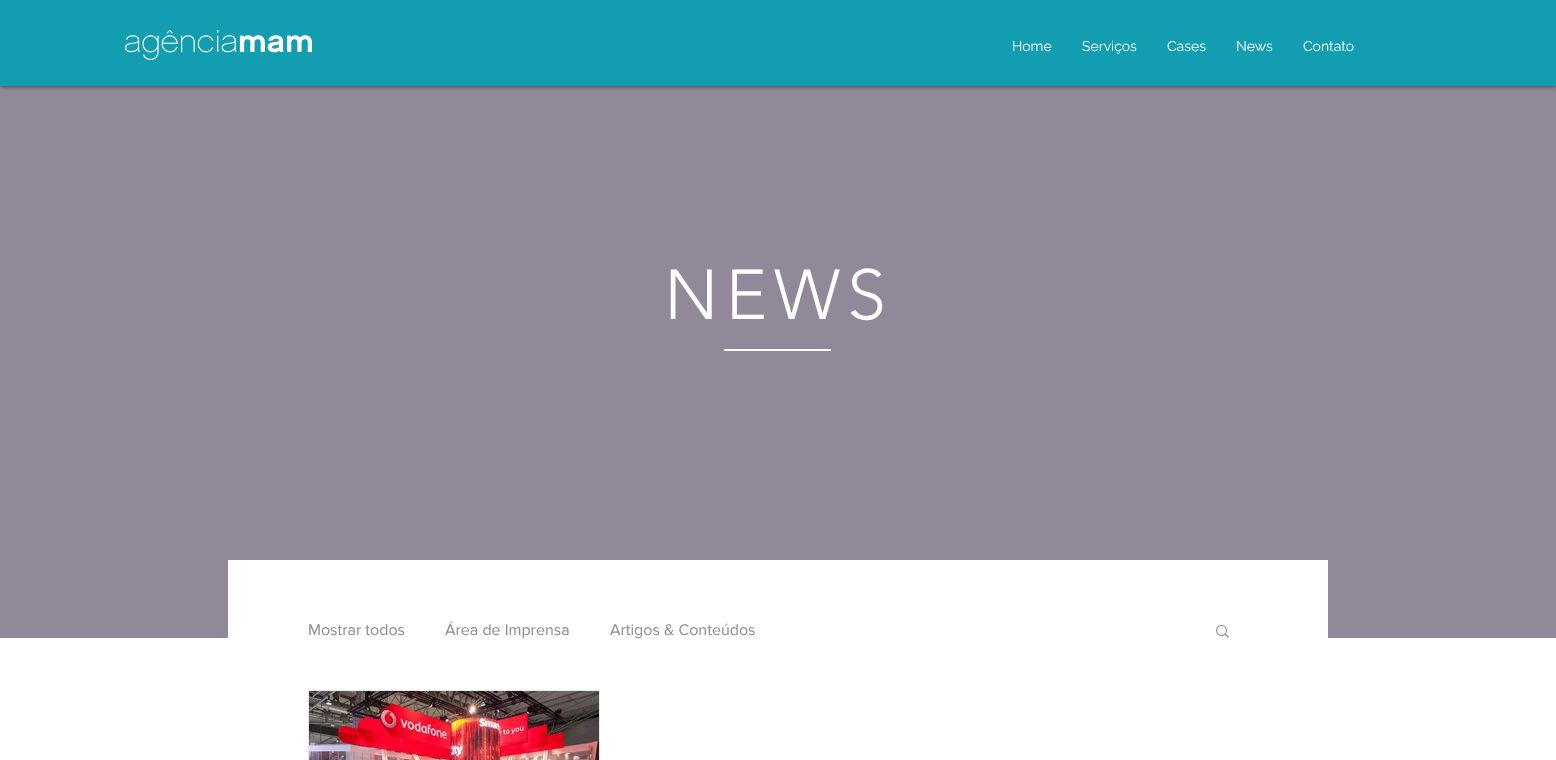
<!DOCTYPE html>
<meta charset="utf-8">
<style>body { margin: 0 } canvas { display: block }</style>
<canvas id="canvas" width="1556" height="760"></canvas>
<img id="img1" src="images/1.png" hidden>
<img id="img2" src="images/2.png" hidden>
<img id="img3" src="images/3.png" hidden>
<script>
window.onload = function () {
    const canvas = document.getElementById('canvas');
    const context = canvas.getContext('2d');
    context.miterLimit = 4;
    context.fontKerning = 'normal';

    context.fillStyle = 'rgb(255, 255, 255)';
    context.fillRect(0, 0, 1556, 760);
    context.fillStyle = 'rgb(145, 137, 153)';
    context.fillRect(0, 86, 1556, 552);
    context.fillStyle = 'rgba(0, 0, 0, 0.7)';
    context.filter = 'blur(2.5px)';
    context.beginPath();
    context.rect(0, 0, 1556, 86);
    context.fill();
    context.filter = 'none';
    context.fillStyle = 'rgb(19, 157, 176)';
    context.fillRect(0, 0, 1556, 86);
    context.drawImage(document.getElementById('img1'), 125, 30, 187, 30);
    context.fillStyle = 'rgb(255, 255, 255)';
    context.fillRect(724, 349, 107, 2);
    context.fillRect(228, 560, 1100, 78);
    context.drawImage(document.getElementById('img2'), 1216, 625, 13, 13);
    context.strokeStyle = 'rgb(232, 230, 230)';
    context.strokeRect(308.5, 690.5, 291, 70);
    context.drawImage(document.getElementById('img3'), 309, 691, 290, 69);
    context.font = '14px Raleway';
    context.fillText('Home', 1012, 51);
    context.fillText('Serviços', 1082, 51);
    context.fillText('Cases', 1167, 51);
    context.fillText('News', 1236, 51);
    context.fillText('Contato', 1303, 51);
    context.letterSpacing = '7px';
    context.font = '300 70px "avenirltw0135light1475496"';
    context.fillText('NEWS', 664, 319);
    context.letterSpacing = '0px';
    context.font = '16px "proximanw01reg"';
    context.fillStyle = 'rgb(140, 140, 140)';
    context.fillText('Mostrar todos', 308, 635);
    context.fillText('Área de Imprensa', 445, 635);
    context.fillText('Artigos & Conteúdos', 610, 635);
};
</script>
